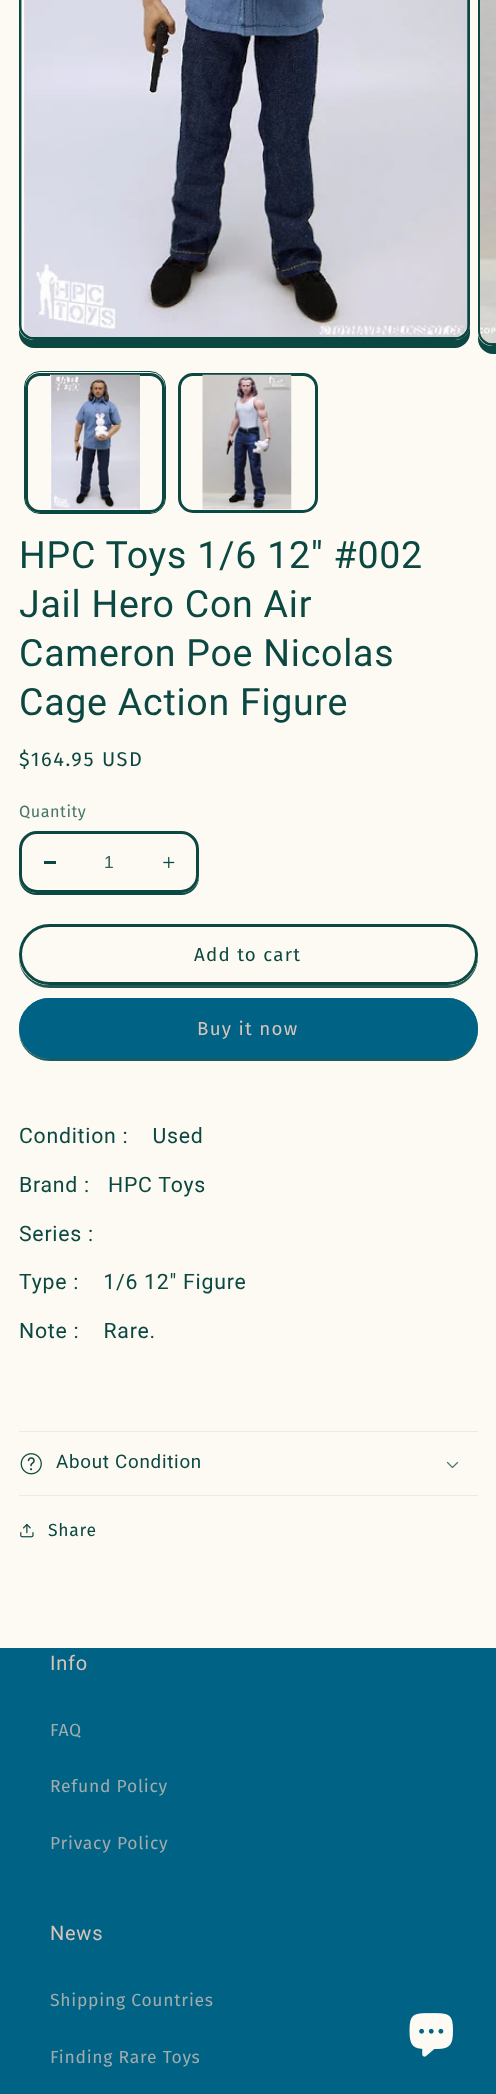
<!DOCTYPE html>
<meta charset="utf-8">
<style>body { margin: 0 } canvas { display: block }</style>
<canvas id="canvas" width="496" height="2094"></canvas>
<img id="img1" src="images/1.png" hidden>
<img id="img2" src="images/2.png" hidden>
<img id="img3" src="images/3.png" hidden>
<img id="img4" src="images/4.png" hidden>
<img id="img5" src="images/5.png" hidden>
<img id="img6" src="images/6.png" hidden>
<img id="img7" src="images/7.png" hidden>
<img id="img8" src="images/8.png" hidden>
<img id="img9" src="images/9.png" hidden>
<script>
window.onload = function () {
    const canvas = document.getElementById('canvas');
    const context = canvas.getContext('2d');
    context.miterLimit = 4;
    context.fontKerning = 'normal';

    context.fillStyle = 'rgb(252, 250, 242)';
    context.fillRect(0, 0, 496, 2094);
    context.fillStyle = 'rgb(12, 72, 66)';
    context.beginPath();
    context.moveTo(19, 328);
    context.lineTo(19, 333);
    context.bezierCurveTo(19, 341, 26, 348, 34, 348);
    context.lineTo(455, 348);
    context.bezierCurveTo(463, 348, 470, 341, 470, 333);
    context.lineTo(470, 325);
    context.bezierCurveTo(470, 333, 463, 340, 455, 340);
    context.lineTo(34, 340);
    context.bezierCurveTo(26, 340, 20, 335, 19, 328);
    context.closePath();
    context.fill();
    context.beginPath();
    context.roundRect(20.5, -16.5, 448, 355, 13.5);
    context.strokeStyle = 'rgb(12, 72, 66)';
    context.lineWidth = 3;
    context.stroke();
    context.drawImage(document.getElementById('img1'), 21, 0, 447, 337);
    context.beginPath();
    context.moveTo(478, 335);
    context.lineTo(478, 339);
    context.bezierCurveTo(478, 347, 485, 354, 493, 354);
    context.lineTo(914, 354);
    context.bezierCurveTo(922, 354, 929, 347, 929, 339);
    context.lineTo(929, -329);
    context.lineTo(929, 331);
    context.bezierCurveTo(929, 340, 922, 346, 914, 346);
    context.lineTo(492, 346);
    context.bezierCurveTo(486, 346, 480, 342, 478, 335);
    context.closePath();
    context.fill();
    context.beginPath();
    context.roundRect(479.5, -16.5, 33, 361, 13.5);
    context.stroke();
    context.drawImage(document.getElementById('img2'), 480, 0, 16, 344);
    context.beginPath();
    context.roundRect(24.5, 371.5, 141, 142, 15.5);
    context.lineWidth = 1;
    context.stroke();
    context.beginPath();
    context.roundRect(26.5, 374.5, 137, 137, 13.5);
    context.lineWidth = 3;
    context.stroke();
    context.drawImage(document.getElementById('img3'), 50, 374, 90, 136);
    context.beginPath();
    context.roundRect(179.5, 374.5, 137, 137, 13.5);
    context.stroke();
    context.drawImage(document.getElementById('img4'), 202, 374, 90, 136);
    context.beginPath();
    context.moveTo(19, 878);
    context.bezierCurveTo(20, 888, 27, 895, 37, 895);
    context.lineTo(181, 895);
    context.bezierCurveTo(191, 895, 199, 887, 199, 877);
    context.lineTo(199, 849);
    context.lineTo(199, 875);
    context.bezierCurveTo(199, 885, 191, 892, 181, 892);
    context.lineTo(36, 892);
    context.bezierCurveTo(28, 892, 21, 886, 19, 878);
    context.closePath();
    context.fill();
    context.fillStyle = 'rgb(252, 250, 242)';
    context.beginPath();
    context.roundRect(19, 831, 180, 62, 18);
    context.fill();
    context.fillStyle = 'rgb(12, 72, 66)';
    context.fillRect(44, 861, 12, 3);
    context.drawImage(document.getElementById('img5'), 163, 856, 12, 13);
    context.beginPath();
    context.roundRect(20.5, 832.5, 177, 59, 16.5);
    context.stroke();
    context.fillStyle = 'rgb(36, 90, 84)';
    context.beginPath();
    context.moveTo(19, 959);
    context.bezierCurveTo(20, 975, 33, 988, 50, 988);
    context.lineTo(447, 988);
    context.bezierCurveTo(464, 988, 478, 974, 478, 957);
    context.lineTo(477, 950);
    context.lineTo(478, 954);
    context.bezierCurveTo(478, 971, 464, 985, 447, 985);
    context.lineTo(49, 985);
    context.bezierCurveTo(34, 985, 21, 974, 19, 959);
    context.closePath();
    context.fill();
    context.fillStyle = 'rgb(252, 250, 242)';
    context.beginPath();
    context.roundRect(19, 924, 459, 61, 30.5);
    context.fill();
    context.beginPath();
    context.roundRect(20.5, 925.5, 456, 58, 29);
    context.strokeStyle = 'rgb(252, 250, 242)';
    context.stroke();
    context.beginPath();
    context.roundRect(20.5, 925.5, 456, 58, 29);
    context.strokeStyle = 'rgb(12, 72, 66)';
    context.stroke();
    context.fillStyle = 'rgb(36, 90, 84)';
    context.beginPath();
    context.moveTo(19, 1033);
    context.bezierCurveTo(20, 1048, 33, 1061, 50, 1061);
    context.lineTo(448, 1061);
    context.bezierCurveTo(464, 1061, 478, 1047, 478, 1030);
    context.lineTo(477, 1023);
    context.lineTo(478, 1028);
    context.bezierCurveTo(478, 1045, 464, 1059, 447, 1059);
    context.lineTo(49, 1059);
    context.bezierCurveTo(34, 1059, 21, 1047, 19, 1033);
    context.closePath();
    context.fill();
    context.fillStyle = 'rgb(0, 98, 132)';
    context.beginPath();
    context.roundRect(19, 998, 459, 61, 30.5);
    context.fill();
    context.beginPath();
    context.roundRect(20.5, 999.5, 456, 58, 29);
    context.strokeStyle = 'rgb(0, 98, 132)';
    context.stroke();
    context.fillStyle = 'rgb(233, 236, 228)';
    context.fillRect(19, 1431, 459, 1);
    context.fillRect(19, 1495, 459, 1);
    context.drawImage(document.getElementById('img6'), 20, 1453, 22, 22);
    context.drawImage(document.getElementById('img7'), 446, 1461, 13, 8);
    context.drawImage(document.getElementById('img8'), 20, 1523, 14, 15);
    context.fillStyle = 'rgb(0, 98, 132)';
    context.fillRect(0, 1648, 496, 446);
    context.drawImage(document.getElementById('img9'), 409, 2013, 44, 44);
    context.letterSpacing = '0.75px';
    context.font = '37.5px Roboto';
    context.fillStyle = 'rgb(12, 72, 66)';
    context.fillText('HPC Toys 1/6 12" #002', 19, 568);
    context.fillText('Jail Hero Con Air', 19, 617);
    context.fillText('Cameron Poe Nicolas', 19, 666);
    context.fillText('Cage Action Figure', 19, 715);
    context.letterSpacing = '1.6px';
    context.font = '20px Fira Sans';
    context.fillText('$164.95 USD', 19, 766);
    context.letterSpacing = '0.5px';
    context.font = '16.25px Fira Sans';
    context.fillStyle = 'rgb(72, 117, 110)';
    context.fillText('Quantity', 19, 817);
    context.letterSpacing = '0px';
    context.font = '17.5px Liberation Sans';
    context.fillStyle = 'rgb(48, 99, 92)';
    context.fillText('1', 104, 868);
    context.letterSpacing = '1.25px';
    context.font = '18.75px Fira Sans';
    context.fillStyle = 'rgb(12, 72, 66)';
    context.fillText('Add to cart', 194, 961);
    context.fillStyle = 'rgb(215, 196, 187)';
    context.fillText('Buy it now', 197, 1035);
    context.letterSpacing = '0.75px';
    context.font = '21.25px Roboto';
    context.fillStyle = 'rgb(12, 72, 66)';
    context.fillText('Condition :    Used', 19, 1143);
    context.fillText('Brand :   HPC Toys', 19, 1192);
    context.fillText('Series :', 19, 1241);
    context.fillText('Type :    1/6 12" Figure', 19, 1289);
    context.fillText('Note :    Rare.', 19, 1338);
    context.font = '18.75px Roboto';
    context.fillText('About Condition', 56, 1468);
    context.font = '17.5px Fira Sans';
    context.fillText('Share', 48, 1536);
    context.font = '20px Roboto';
    context.fillStyle = 'rgb(215, 196, 187)';
    context.fillText('Info', 50, 1670);
    context.font = '17.5px Fira Sans';
    context.fillStyle = 'rgb(161, 172, 173)';
    context.fillText('FAQ', 50, 1736);
    context.fillText('Refund Policy', 50, 1792);
    context.fillText('Privacy Policy', 50, 1849);
    context.font = '20px Roboto';
    context.fillStyle = 'rgb(215, 196, 187)';
    context.fillText('News', 50, 1940);
    context.font = '17.5px Fira Sans';
    context.fillStyle = 'rgb(161, 172, 173)';
    context.fillText('Shipping Countries', 50, 2006);
    context.fillText('Finding Rare Toys', 50, 2063);
};
</script>
